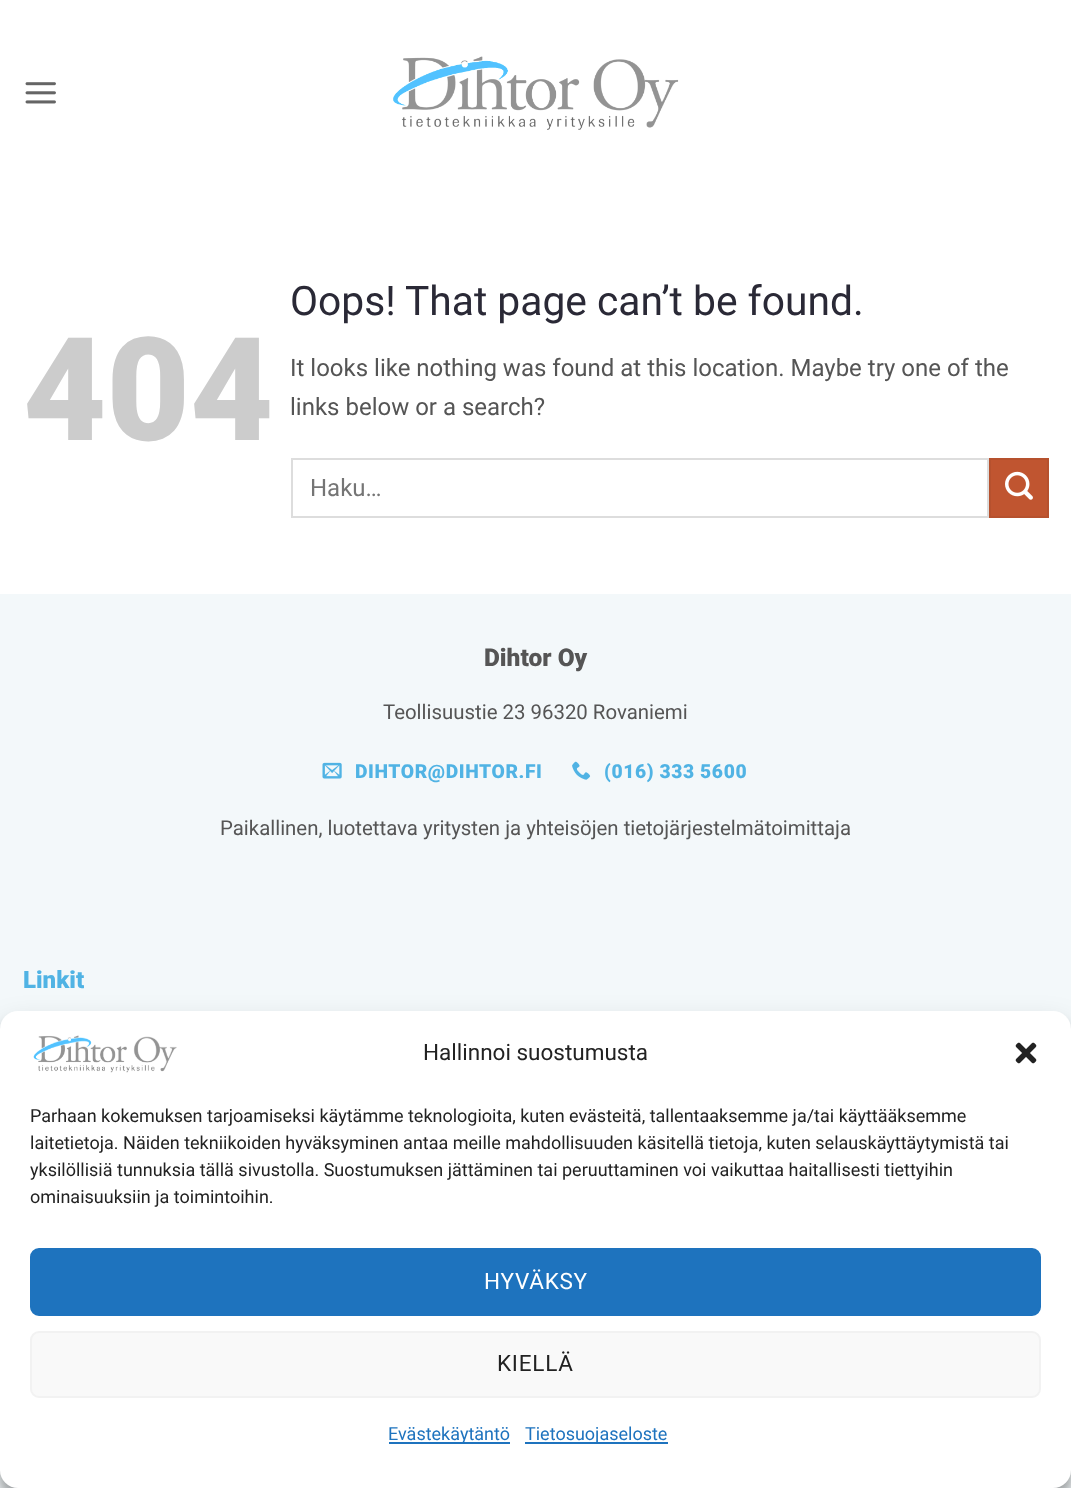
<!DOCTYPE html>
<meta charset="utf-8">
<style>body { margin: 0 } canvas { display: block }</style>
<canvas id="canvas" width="1071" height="1488"></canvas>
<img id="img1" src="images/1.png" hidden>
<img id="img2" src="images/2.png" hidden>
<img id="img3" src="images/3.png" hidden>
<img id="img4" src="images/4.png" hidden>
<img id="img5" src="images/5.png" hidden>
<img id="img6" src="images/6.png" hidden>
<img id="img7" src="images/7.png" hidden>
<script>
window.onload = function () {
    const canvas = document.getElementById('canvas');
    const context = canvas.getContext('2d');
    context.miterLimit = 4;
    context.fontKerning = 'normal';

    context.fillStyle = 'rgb(255, 255, 255)';
    context.fillRect(0, 0, 1071, 1488);
    context.drawImage(document.getElementById('img1'), 25, 82, 31, 22);
    context.drawImage(document.getElementById('img2'), 393, 56, 286, 74);
    context.strokeStyle = 'rgb(221, 221, 221)';
    context.lineWidth = 2;
    context.strokeRect(292, 459, 696, 58);
    context.fillStyle = 'rgb(192, 85, 48)';
    context.beginPath();
    context.rect(990, 459, 58, 58);
    context.fill();
    context.strokeStyle = 'rgb(182, 81, 46)';
    context.stroke();
    context.drawImage(document.getElementById('img3'), 1005, 471, 28, 29);
    context.fillStyle = 'rgb(243, 248, 250)';
    context.fillRect(0, 594, 1071, 894);
    context.drawImage(document.getElementById('img4'), 322, 762, 20, 17);
    context.drawImage(document.getElementById('img5'), 572, 761, 19, 19);
    context.fillStyle = 'rgba(0, 0, 0, 0.23)';
    context.filter = 'blur(4.5px)';
    context.beginPath();
    context.roundRect(0, 1020, 1071, 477, 18);
    context.fill();
    context.filter = 'none';
    context.fillStyle = 'rgba(0, 0, 0, 0.19)';
    context.filter = 'blur(15px)';
    context.beginPath();
    context.roundRect(0, 1026, 1071, 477, 18);
    context.fill();
    context.filter = 'none';
    context.fillStyle = 'rgb(255, 255, 255)';
    context.beginPath();
    context.roundRect(0, 1011, 1071, 477, 18);
    context.fill();
    context.drawImage(document.getElementById('img6'), 33, 1035, 144, 38);
    context.drawImage(document.getElementById('img7'), 1015, 1042, 22, 22);
    context.fillStyle = 'rgb(30, 115, 190)';
    context.beginPath();
    context.roundRect(31, 1249, 1009, 66, 8);
    context.fill();
    context.strokeStyle = 'rgb(30, 115, 190)';
    context.stroke();
    context.fillStyle = 'rgb(249, 249, 249)';
    context.beginPath();
    context.roundRect(31, 1332, 1009, 65, 8);
    context.fill();
    context.strokeStyle = 'rgb(242, 242, 242)';
    context.stroke();
    context.fillStyle = 'rgb(30, 115, 190)';
    context.fillRect(389, 1442, 121, 2);
    context.fillRect(525, 1442, 143, 2);
    context.font = '900 144px Roboto';
    context.fillStyle = 'rgb(204, 204, 204)';
    context.fillText('404', 23, 440);
    context.font = '40.75px Roboto';
    context.fillStyle = 'rgb(42, 41, 54)';
    context.fillText('Oops! That page can’t be found.', 290, 315);
    context.font = '24px Roboto';
    context.fillStyle = 'rgb(85, 85, 85)';
    context.fillText('It looks like nothing was found at this location. Maybe try one of the', 290, 376);
    context.fillText('links below or a search?', 290, 415);
    context.fillStyle = 'rgb(117, 117, 117)';
    context.fillText('Haku…', 310, 496);
    context.font = '900 24.5px Roboto';
    context.fillStyle = 'rgb(85, 85, 85)';
    context.fillText('Dihtor Oy', 484, 666);
    context.font = '20.4px Roboto';
    context.fillText('Teollisuustie 23 96320 Rovaniemi', 383, 719);
    context.letterSpacing = '0.6px';
    context.font = '900 19.25px Roboto';
    context.fillStyle = 'rgb(80, 179, 228)';
    context.fillText('DIHTOR@DIHTOR.FI', 355, 778);
    context.fillText('(016) 333 5600', 604, 778);
    context.letterSpacing = '0px';
    context.font = '20.4px Roboto';
    context.fillStyle = 'rgb(85, 85, 85)';
    context.fillText('Paikallinen, luotettava yritysten ja yhteisöjen tietojärjestelmätoimittaja', 220, 835);
    context.font = '900 24px Roboto';
    context.fillStyle = 'rgb(80, 179, 228)';
    context.fillText('Linkit', 23, 988);
    context.font = '22.5px Roboto';
    context.fillStyle = 'rgb(34, 34, 34)';
    context.fillText('Hallinnoi suostumusta', 423, 1060);
    context.font = '18px Roboto';
    context.fillText('Parhaan kokemuksen tarjoamiseksi käytämme teknologioita, kuten evästeitä, tallentaaksemme ja/tai käyttääksemme', 30, 1122);
    context.fillText('laitetietoja. Näiden tekniikoiden hyväksyminen antaa meille mahdollisuuden käsitellä tietoja, kuten selauskäyttäytymistä tai', 30, 1149);
    context.fillText('yksilöllisiä tunnuksia tällä sivustolla. Suostumuksen jättäminen tai peruuttaminen voi vaikuttaa haitallisesti tiettyihin', 30, 1176);
    context.fillText('ominaisuuksiin ja toimintoihin.', 30, 1203);
    context.letterSpacing = '0.75px';
    context.font = '22.5px Roboto';
    context.fillStyle = 'rgb(255, 255, 255)';
    context.fillText('HYVÄKSY', 484, 1289);
    context.fillStyle = 'rgb(34, 34, 34)';
    context.fillText('KIELLÄ', 497, 1371);
    context.letterSpacing = '0px';
    context.font = '18px Roboto';
    context.fillStyle = 'rgb(30, 115, 190)';
    context.fillText('Evästekäytäntö', 388, 1440);
    context.fillText('Tietosuojaseloste', 525, 1440);
};
</script>
